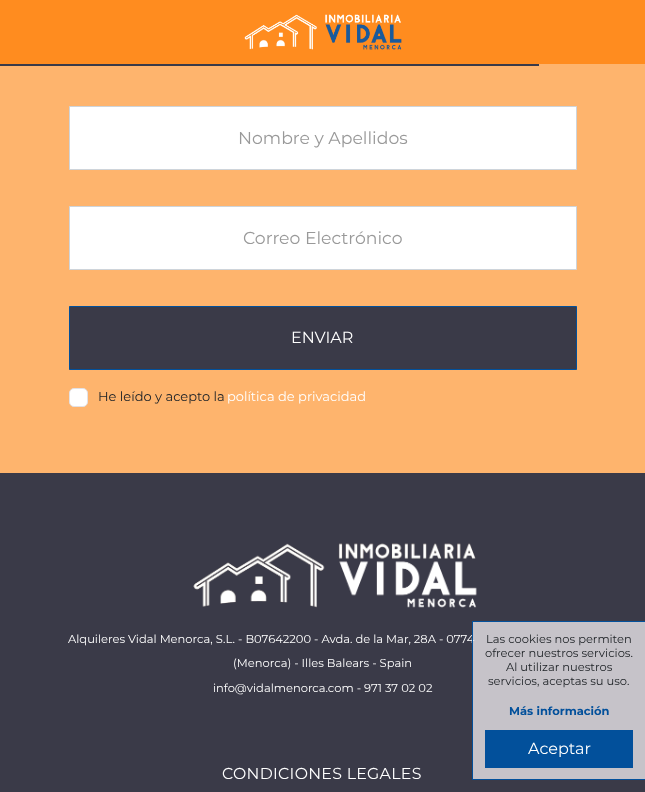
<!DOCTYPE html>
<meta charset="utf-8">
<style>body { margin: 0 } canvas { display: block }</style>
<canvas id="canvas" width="645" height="792"></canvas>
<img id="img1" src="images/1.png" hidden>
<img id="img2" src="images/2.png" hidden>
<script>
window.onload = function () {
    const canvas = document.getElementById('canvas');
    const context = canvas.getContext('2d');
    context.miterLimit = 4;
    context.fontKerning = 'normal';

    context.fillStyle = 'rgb(58, 58, 72)';
    context.fillRect(0, 0, 645, 792);
    context.fillStyle = 'rgb(255, 140, 31)';
    context.fillRect(0, 0, 645, 64);
    context.drawImage(document.getElementById('img1'), 244, 14, 158, 36);
    context.fillStyle = 'rgb(254, 180, 109)';
    context.fillRect(0, 64, 645, 409);
    context.fillStyle = 'rgb(58, 58, 72)';
    context.fillRect(0, 64, 539, 2);
    context.fillStyle = 'rgb(255, 255, 255)';
    context.beginPath();
    context.rect(69.5, 106.5, 507, 63);
    context.fill();
    context.strokeStyle = 'rgb(206, 212, 218)';
    context.stroke();
    context.beginPath();
    context.rect(69.5, 206.5, 507, 63);
    context.fill();
    context.stroke();
    context.fillStyle = 'rgb(58, 58, 72)';
    context.beginPath();
    context.rect(69.5, 306.5, 507, 63);
    context.fill();
    context.strokeStyle = 'rgb(2, 80, 155)';
    context.stroke();
    context.fillStyle = 'rgb(255, 255, 255)';
    context.beginPath();
    context.roundRect(69.5, 388.5, 18, 18, 4.5);
    context.fill();
    context.strokeStyle = 'rgb(227, 225, 228)';
    context.stroke();
    context.drawImage(document.getElementById('img2'), 193, 543, 284, 65);
    context.fillStyle = 'rgb(2, 80, 155)';
    context.fillRect(472, 621, 173, 1);
    context.fillRect(472, 779, 173, 1);
    context.font = '17.25px Montserrat';
    context.fillStyle = 'rgb(153, 153, 153)';
    context.fillText('Nombre y Apellidos', 238, 144);
    context.fillText('Correo Electrónico', 243, 244);
    context.font = '16px Montserrat';
    context.fillStyle = 'rgb(255, 255, 255)';
    context.fillText('ENVIAR', 291, 343);
    context.font = '13px Montserrat';
    context.fillStyle = 'rgb(33, 37, 41)';
    context.fillText('He leído y acepto la', 98, 401);
    context.fillStyle = 'rgb(255, 255, 255)';
    context.fillText('política de privacidad', 227, 401);
    context.font = '11.5px Montserrat';
    context.fillText('Alquileres Vidal Menorca, S.L. - B07642200 - Avda. de la Mar, 28A - 0774', 68, 643);
    context.fillText('(Menorca) - Illes Balears - Spain', 233, 667);
    context.fillText('info@vidalmenorca.com - 971 37 02 02', 213, 692);
    context.letterSpacing = '0.3px';
    context.font = '15.8px Montserrat';
    context.fillText('CONDICIONES LEGALES', 222, 779);
    context.fillStyle = 'rgba(246, 242, 244, 0.75)';
    context.fillRect(473, 622, 172, 157);
    context.fillStyle = 'rgb(2, 80, 155)';
    context.fillRect(472, 621, 1, 159);
    context.letterSpacing = '0px';
    context.font = '11.5px Montserrat';
    context.fillStyle = 'rgb(33, 37, 41)';
    context.fillText('Las cookies nos permiten', 486, 643);
    context.fillText('ofrecer nuestros servicios.', 485, 657);
    context.fillText('Al utilizar nuestros', 506, 671);
    context.fillText('servicios, aceptas su uso.', 488, 685);
    context.font = 'bold 11.5px Montserrat';
    context.fillStyle = 'rgb(2, 80, 155)';
    context.fillText('Más información', 509, 715);
    context.fillRect(485, 730, 148, 38);
    context.font = '16px Montserrat';
    context.fillStyle = 'rgb(255, 255, 255)';
    context.fillText('Aceptar', 528, 754);
};
</script>
